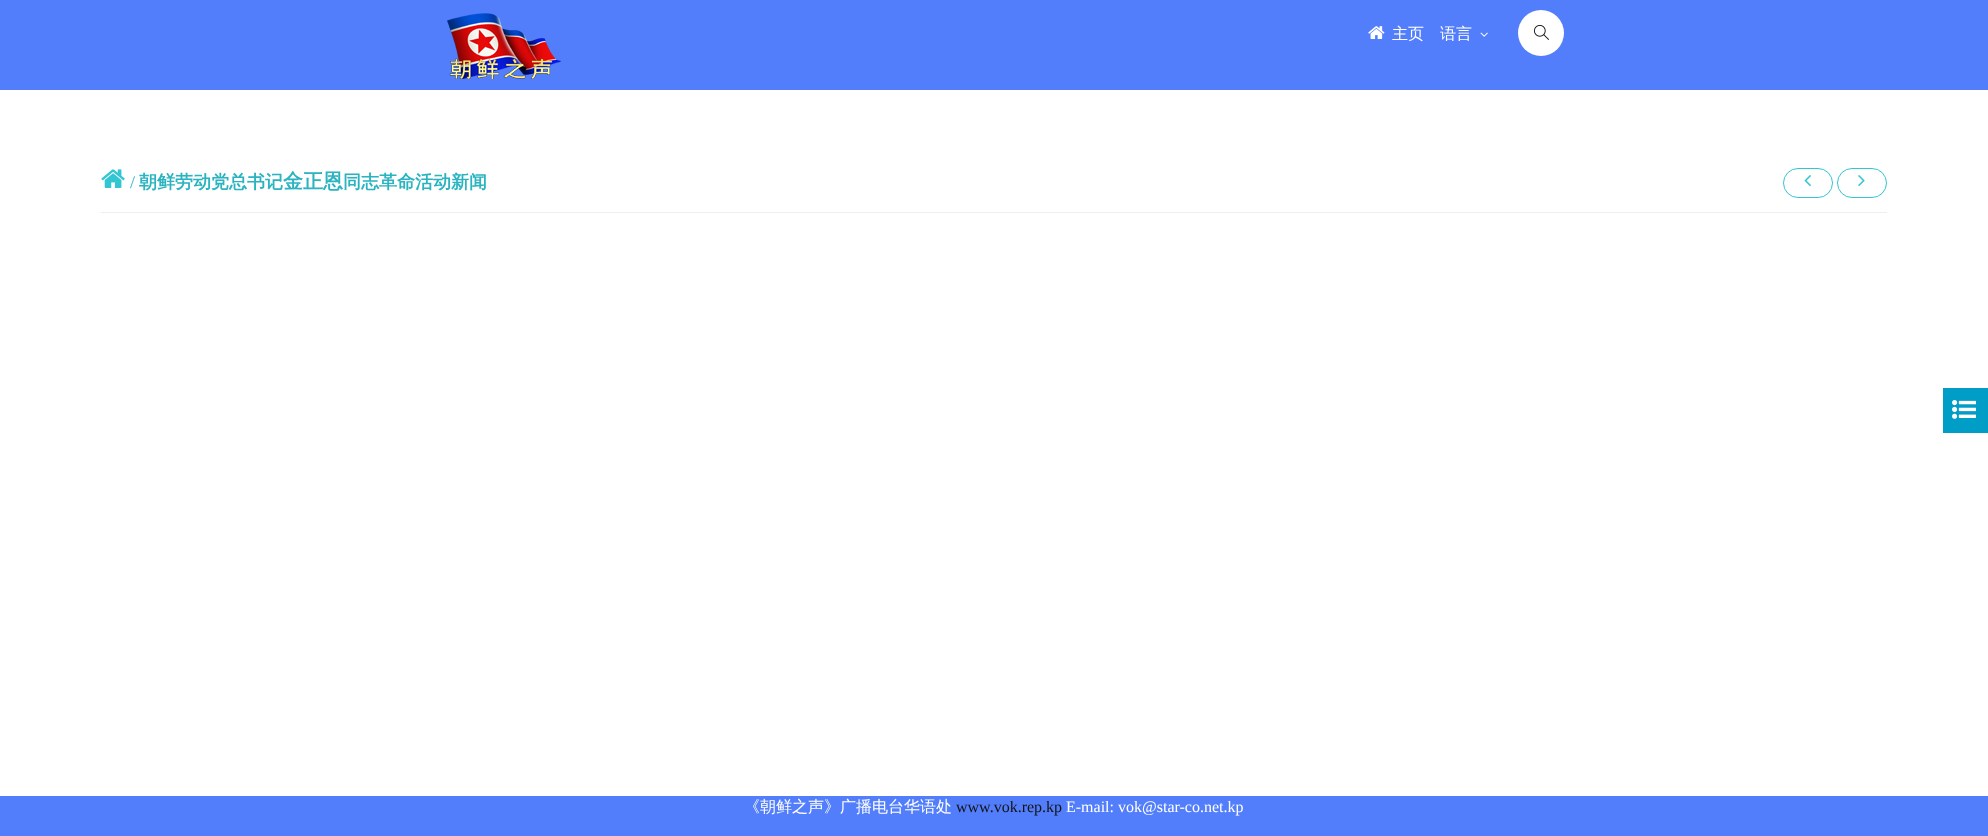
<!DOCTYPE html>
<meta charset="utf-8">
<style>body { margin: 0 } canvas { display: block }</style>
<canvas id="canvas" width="1988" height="836"></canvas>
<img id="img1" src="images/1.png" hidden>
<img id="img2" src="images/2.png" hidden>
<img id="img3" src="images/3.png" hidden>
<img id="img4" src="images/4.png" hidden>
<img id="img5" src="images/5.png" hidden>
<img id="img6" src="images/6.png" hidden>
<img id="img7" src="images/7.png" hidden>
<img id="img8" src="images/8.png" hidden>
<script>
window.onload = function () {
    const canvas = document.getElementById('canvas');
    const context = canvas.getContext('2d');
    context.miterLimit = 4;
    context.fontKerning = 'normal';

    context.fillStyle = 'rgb(255, 255, 255)';
    context.fillRect(0, 0, 1988, 836);
    context.fillStyle = 'rgb(82, 126, 252)';
    context.fillRect(0, 0, 1988, 90);
    context.drawImage(document.getElementById('img1'), 447, 13, 114, 66);
    context.drawImage(document.getElementById('img2'), 1368, 26, 17, 13);
    context.drawImage(document.getElementById('img3'), 1480, 32, 8, 5);
    context.fillStyle = 'rgb(255, 255, 255)';
    context.beginPath();
    context.arc(1541, 33, 23, 0, 2 * Math.PI);
    context.fill();
    context.drawImage(document.getElementById('img4'), 1534, 24, 15, 16);
    context.fillStyle = 'rgb(238, 238, 238)';
    context.fillRect(101, 212, 1786, 1);
    context.drawImage(document.getElementById('img5'), 101, 169, 24, 19);
    context.beginPath();
    context.roundRect(1783.5, 168.5, 49, 29, 14.5);
    context.strokeStyle = 'rgb(50, 197, 210)';
    context.stroke();
    context.drawImage(document.getElementById('img6'), 1804, 175, 7, 12);
    context.beginPath();
    context.roundRect(1837.5, 168.5, 49, 29, 14.5);
    context.stroke();
    context.drawImage(document.getElementById('img7'), 1858, 175, 7, 12);
    context.fillStyle = 'rgb(0, 157, 199)';
    context.fillRect(1943, 388, 45, 45);
    context.drawImage(document.getElementById('img8'), 1952, 400, 24, 19);
    context.fillStyle = 'rgb(82, 126, 252)';
    context.fillRect(0, 796, 1988, 40);
    context.font = '500 16px WenQuanYi Zen Hei';
    context.fillStyle = 'rgb(255, 255, 255)';
    context.fillText('主页', 1392, 39);
    context.fillText('语言', 1440, 39);
    context.font = '18px Liberation Serif';
    context.fillStyle = 'rgb(42, 180, 192)';
    context.fillText('/', 130, 188);
    context.font = 'bold 18px WenQuanYi Zen Hei';
    context.fillText('朝鲜劳动党总书记', 139, 188);
    context.font = 'bold 20px WenQuanYi Zen Hei';
    context.fillText('金正恩', 283, 188);
    context.font = 'bold 18px WenQuanYi Zen Hei';
    context.fillText('同志革命活动新闻', 343, 188);
    context.font = '500 16px WenQuanYi Zen Hei';
    context.fillStyle = 'rgb(255, 255, 255)';
    context.fillText('《朝鲜之声》广播电台华语处', 744, 812);
    context.font = '16px Liberation Serif';
    context.fillStyle = 'rgb(19, 19, 20)';
    context.fillText('www.vok.rep.kp', 956, 812);
    context.fillStyle = 'rgb(255, 255, 255)';
    context.fillText('E-mail: vok@star-co.net.kp', 1066, 812);
};
</script>
